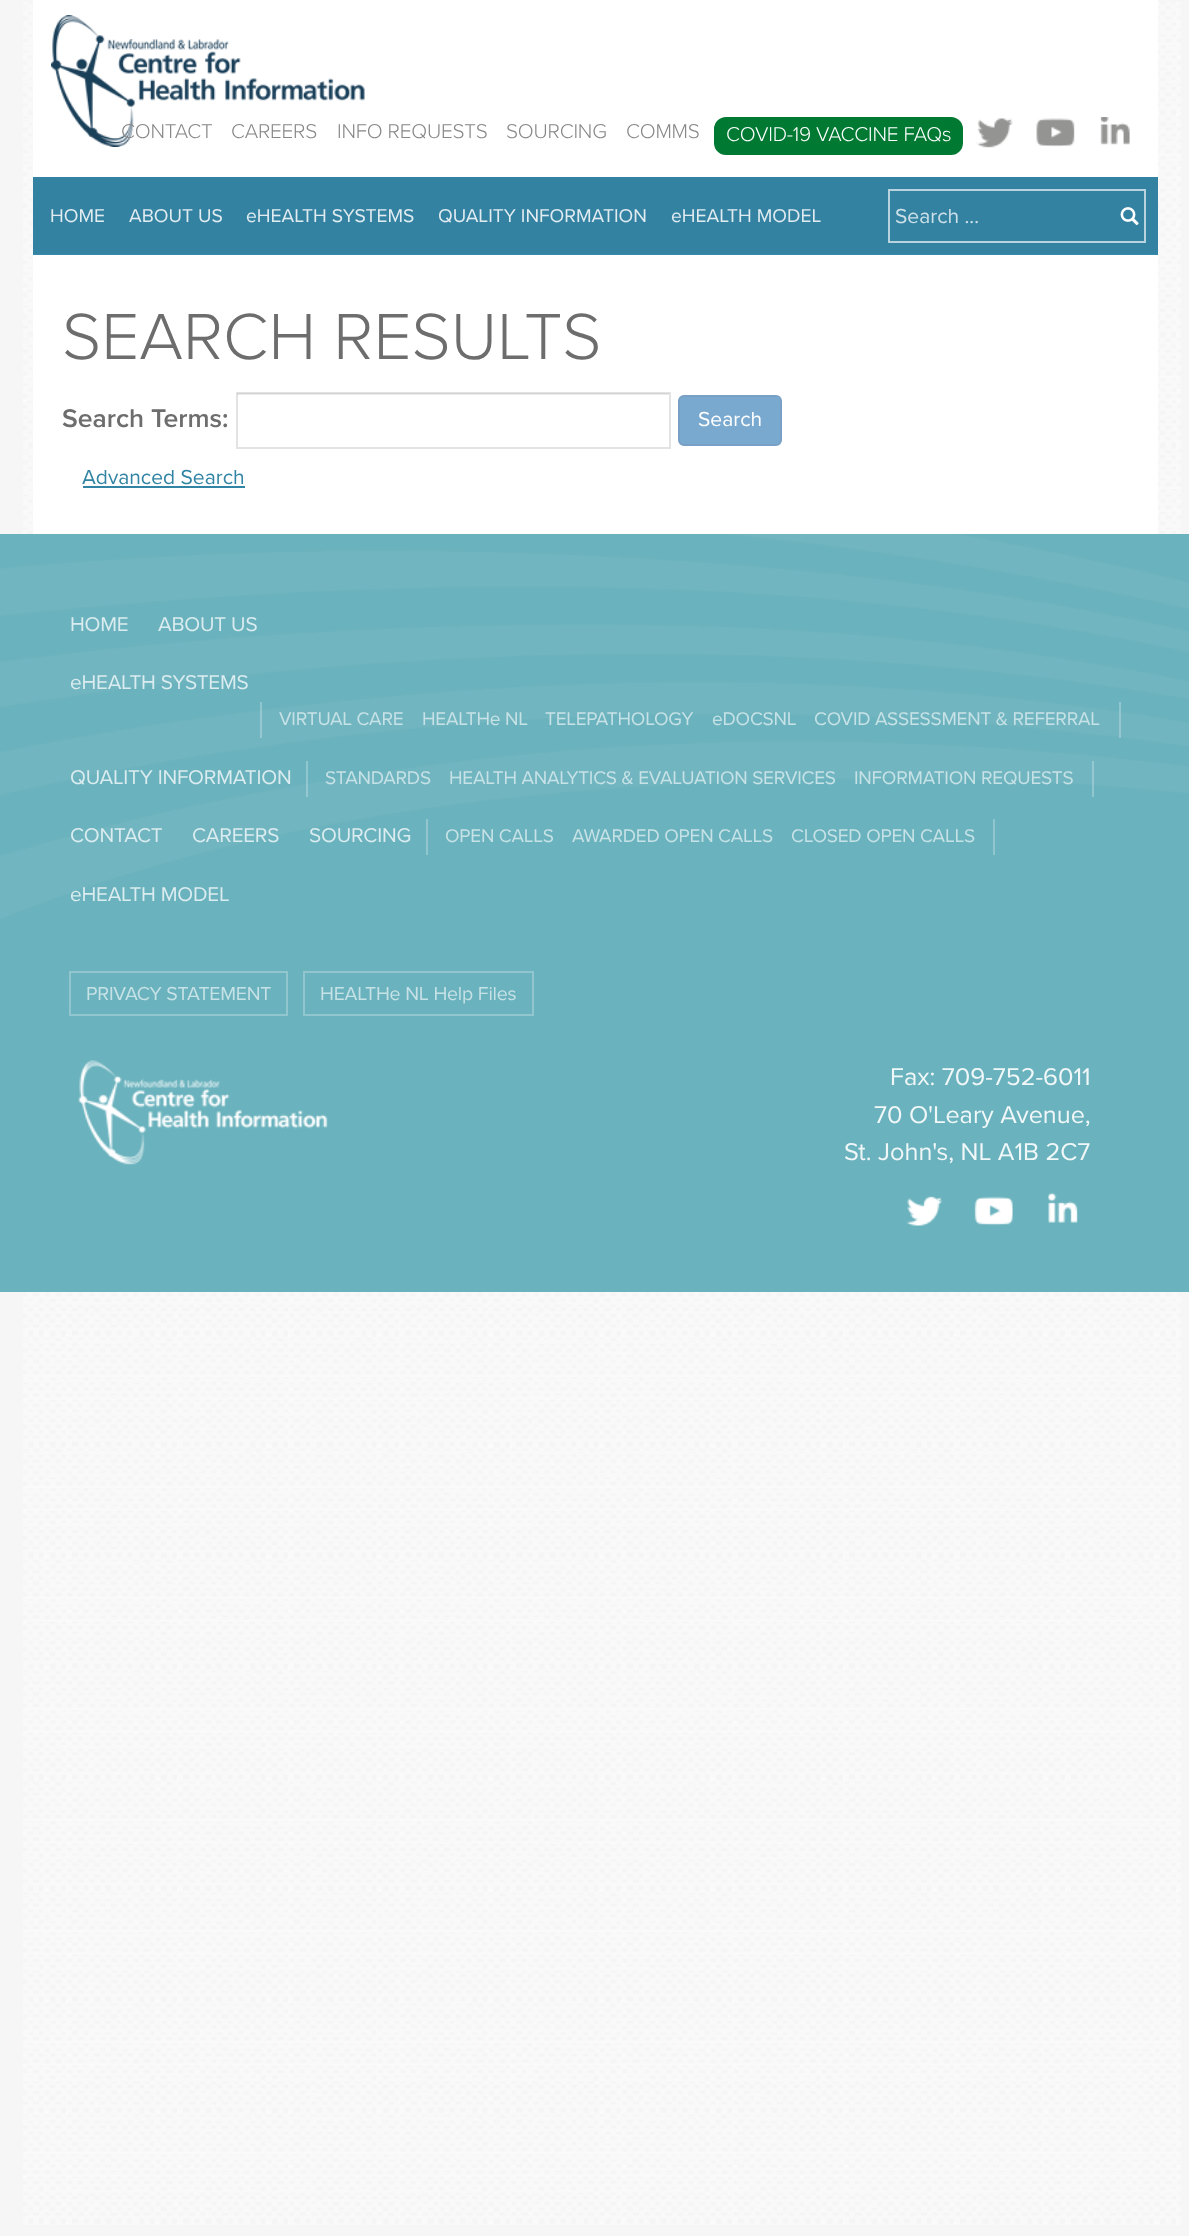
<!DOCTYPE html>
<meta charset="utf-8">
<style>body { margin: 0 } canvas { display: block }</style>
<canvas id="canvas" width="1189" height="2236"></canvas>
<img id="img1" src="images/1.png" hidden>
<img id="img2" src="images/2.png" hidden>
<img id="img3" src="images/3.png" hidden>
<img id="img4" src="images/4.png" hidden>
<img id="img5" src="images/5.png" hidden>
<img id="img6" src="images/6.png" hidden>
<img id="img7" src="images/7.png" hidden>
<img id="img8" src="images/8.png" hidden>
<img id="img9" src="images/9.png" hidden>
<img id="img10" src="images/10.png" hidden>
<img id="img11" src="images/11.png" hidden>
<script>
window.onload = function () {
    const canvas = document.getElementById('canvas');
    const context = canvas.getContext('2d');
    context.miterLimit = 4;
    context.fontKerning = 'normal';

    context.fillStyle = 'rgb(246, 246, 246)';
    context.fillRect(0, 0, 1189, 2236);
    context.drawImage(document.getElementById('img1'), 23, 2, 1158, 2223);
    context.fillStyle = 'rgb(255, 255, 255)';
    context.fillRect(33, 0, 1125, 177);
    context.drawImage(document.getElementById('img2'), 51, 15, 314, 132);
    context.fillStyle = 'rgb(0, 122, 51)';
    context.beginPath();
    context.roundRect(715.5, 118.5, 246, 35, 10.5);
    context.fill();
    context.strokeStyle = 'rgb(0, 122, 51)';
    context.lineWidth = 3;
    context.stroke();
    context.drawImage(document.getElementById('img3'), 976, 118, 37, 30);
    context.drawImage(document.getElementById('img4'), 1036, 118, 39, 29);
    context.drawImage(document.getElementById('img5'), 1100, 117, 30, 28);
    context.fillStyle = 'rgb(52, 130, 162)';
    context.fillRect(33, 177, 1125, 77);
    context.fillStyle = 'rgb(55, 137, 171)';
    context.fillRect(33, 254, 1125, 1);
    context.strokeStyle = 'rgb(184, 211, 222)';
    context.lineWidth = 2;
    context.strokeRect(889, 190, 256, 52);
    context.drawImage(document.getElementById('img6'), 1120, 207, 19, 19);
    context.fillStyle = 'rgb(255, 255, 255)';
    context.fillRect(33, 255, 1125, 279);
    context.fillStyle = 'rgb(236, 236, 236)';
    context.fillRect(237, 393, 432, 2);
    context.strokeStyle = 'rgba(0, 0, 0, 0.11)';
    context.strokeRect(237, 393, 433, 55);
    context.fillStyle = 'rgb(122, 169, 208)';
    context.beginPath();
    context.roundRect(679, 396, 102, 49, 5);
    context.fill();
    context.strokeStyle = 'rgb(119, 160, 196)';
    context.stroke();
    context.fillStyle = 'rgb(50, 132, 164)';
    context.fillRect(83, 486, 162, 2);
    context.fillStyle = 'rgb(106, 178, 189)';
    context.fillRect(0, 534, 1189, 758);
    context.drawImage(document.getElementById('img7'), 0, 534, 1189, 385);
    context.fillStyle = 'rgba(255, 255, 255, 0.26)';
    context.fillRect(1119, 702, 2, 36);
    context.fillRect(260, 702, 2, 36);
    context.fillRect(1092, 761, 2, 36);
    context.fillRect(306, 761, 2, 36);
    context.fillStyle = 'rgb(145, 198, 206)';
    context.fillRect(993, 819, 2, 36);
    context.fillRect(426, 819, 2, 36);
    context.strokeStyle = 'rgb(145, 198, 206)';
    context.strokeRect(70, 972, 217, 43);
    context.strokeRect(304, 972, 229, 43);
    context.drawImage(document.getElementById('img8'), 78, 1060, 250, 105);
    context.drawImage(document.getElementById('img9'), 906, 1196, 37, 30);
    context.drawImage(document.getElementById('img10'), 974, 1196, 39, 30);
    context.drawImage(document.getElementById('img11'), 1048, 1192, 30, 31);
    context.letterSpacing = '-0.2px';
    context.font = '300 20.75px Proxima Nova';
    context.fillStyle = 'rgb(135, 135, 136)';
    context.fillText('CONTACT', 121, 138);
    context.fillText('CAREERS', 231, 138);
    context.fillText('INFO REQUESTS', 337, 138);
    context.fillText('SOURCING', 506, 138);
    context.fillText('COMMS', 626, 138);
    context.fillStyle = 'rgb(255, 255, 255)';
    context.fillText('COVID-19 VACCINE FAQs', 726, 141);
    context.letterSpacing = '0px';
    context.font = '19.25px Proxima Nova';
    context.fillStyle = 'rgb(225, 236, 241)';
    context.fillText('HOME', 50, 222);
    context.fillText('ABOUT US', 129, 222);
    context.fillText('eHEALTH SYSTEMS', 246, 222);
    context.fillText('QUALITY INFORMATION', 438, 222);
    context.fillText('eHEALTH MODEL', 671, 222);
    context.font = '21px Proxima Nova';
    context.fillStyle = 'rgb(204, 224, 232)';
    context.fillText('Search ...', 895, 223);
    context.font = '300 67.5px Proxima Nova';
    context.fillStyle = 'rgb(109, 109, 109)';
    context.fillText('SEARCH RESULTS', 62, 359);
    context.font = '600 26.5px Proxima Nova';
    context.fillText('Search Terms:', 62, 427);
    context.font = '21px Proxima Nova';
    context.fillStyle = 'rgb(255, 255, 255)';
    context.fillText('Search', 698, 426);
    context.fillStyle = 'rgb(50, 132, 164)';
    context.fillText('Advanced Search', 82, 484);
    context.letterSpacing = '-0.2px';
    context.font = '20.75px Proxima Nova';
    context.fillStyle = 'rgb(218, 236, 239)';
    context.fillText('HOME', 70, 631);
    context.fillText('ABOUT US', 158, 631);
    context.fillText('eHEALTH SYSTEMS', 70, 689);
    context.font = '19px Proxima Nova';
    context.fillStyle = 'rgb(198, 226, 230)';
    context.fillText('VIRTUAL CARE', 279, 725);
    context.fillText('HEALTHe NL', 422, 725);
    context.fillText('TELEPATHOLOGY', 545, 725);
    context.fillText('eDOCSNL', 712, 725);
    context.fillText('COVID ASSESSMENT & REFERRAL', 814, 725);
    context.font = '20.75px Proxima Nova';
    context.fillStyle = 'rgb(218, 236, 239)';
    context.fillText('QUALITY INFORMATION', 70, 784);
    context.font = '19px Proxima Nova';
    context.fillStyle = 'rgb(198, 226, 230)';
    context.fillText('STANDARDS', 325, 784);
    context.fillText('HEALTH ANALYTICS & EVALUATION SERVICES', 449, 784);
    context.fillText('INFORMATION REQUESTS', 854, 784);
    context.font = '20.75px Proxima Nova';
    context.fillStyle = 'rgb(218, 236, 239)';
    context.fillText('CONTACT', 70, 842);
    context.fillText('CAREERS', 192, 842);
    context.fillText('SOURCING', 309, 842);
    context.font = '19px Proxima Nova';
    context.fillStyle = 'rgb(198, 226, 230)';
    context.fillText('OPEN CALLS', 445, 842);
    context.fillText('AWARDED OPEN CALLS', 572, 842);
    context.fillText('CLOSED OPEN CALLS', 791, 842);
    context.font = '20.75px Proxima Nova';
    context.fillStyle = 'rgb(218, 236, 239)';
    context.fillText('eHEALTH MODEL', 70, 901);
    context.font = '19.5px Proxima Nova';
    context.fillStyle = 'rgb(198, 226, 230)';
    context.fillText('PRIVACY STATEMENT', 86, 1000);
    context.fillText('HEALTHe NL Help Files', 320, 1000);
    context.letterSpacing = '0px';
    context.font = '25.25px Proxima Nova';
    context.fillStyle = 'rgb(240, 247, 248)';
    context.fillText('Fax: 709-752-6011', 890, 1085);
    context.fillText('70 O\'Leary Avenue,', 874, 1123);
    context.fillText('St. John\'s, NL A1B 2C7', 844, 1160);
};
</script>
